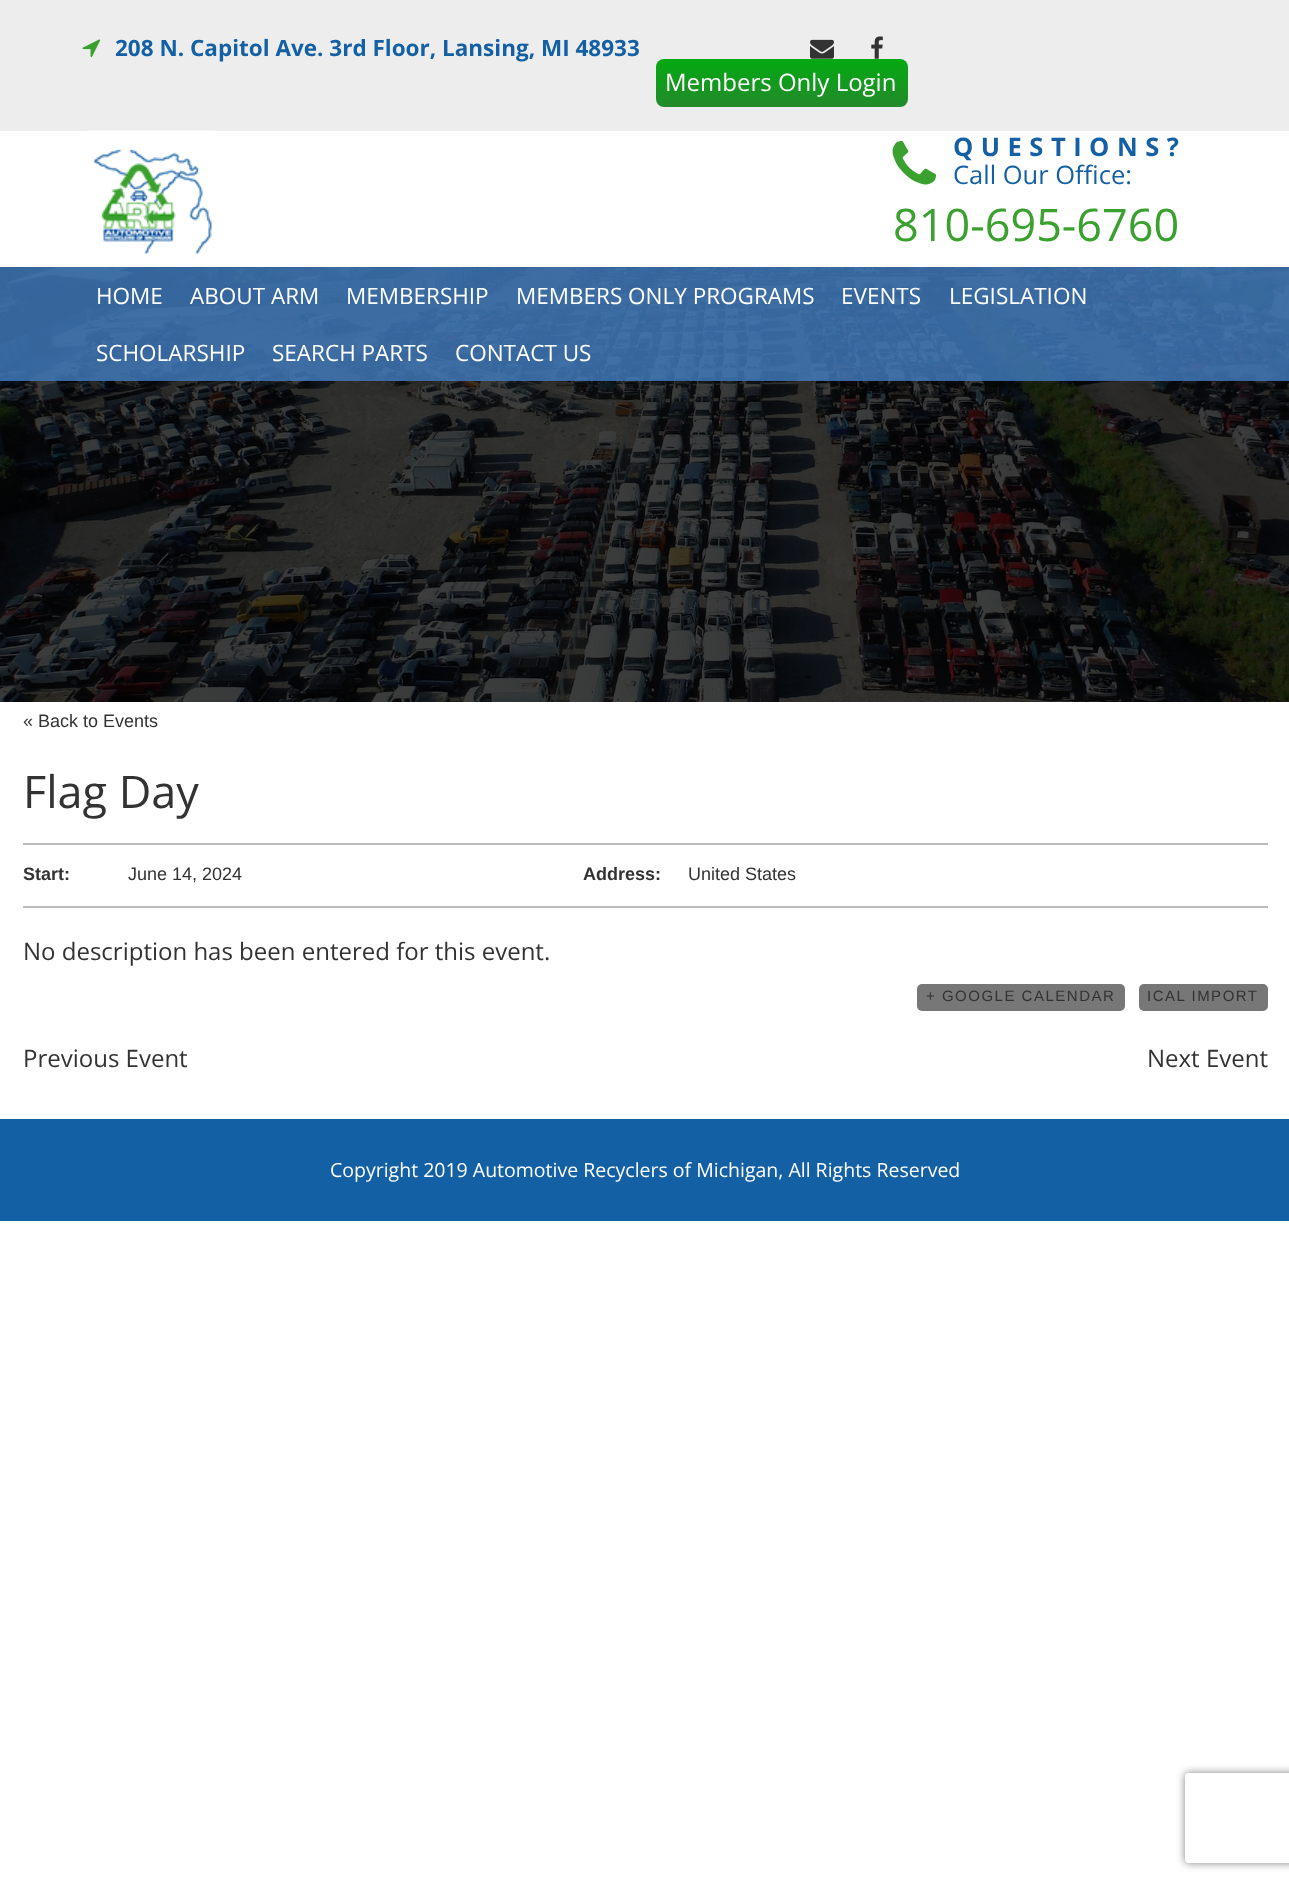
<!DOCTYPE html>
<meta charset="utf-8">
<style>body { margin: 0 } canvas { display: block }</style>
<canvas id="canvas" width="1289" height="1883"></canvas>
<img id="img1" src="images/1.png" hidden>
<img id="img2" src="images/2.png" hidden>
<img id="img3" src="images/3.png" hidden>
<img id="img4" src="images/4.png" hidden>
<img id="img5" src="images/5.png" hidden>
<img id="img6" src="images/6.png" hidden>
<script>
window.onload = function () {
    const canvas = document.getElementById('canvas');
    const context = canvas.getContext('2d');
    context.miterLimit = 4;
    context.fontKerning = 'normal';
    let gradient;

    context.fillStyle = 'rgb(255, 255, 255)';
    context.fillRect(0, 0, 1289, 1883);
    context.fillStyle = 'rgb(237, 237, 237)';
    context.fillRect(0, 0, 1289, 131);
    context.drawImage(document.getElementById('img1'), 82, 39, 19, 19);
    context.drawImage(document.getElementById('img2'), 810, 39, 24, 20);
    context.drawImage(document.getElementById('img3'), 871, 36, 12, 23);
    gradient = context.createLinearGradient(782, 58, 782, 107);
    gradient.addColorStop(0, 'rgb(3, 170, 17)');
    gradient.addColorStop(1, 'rgb(35, 138, 43)');
    context.fillStyle = gradient;
    context.beginPath();
    context.roundRect(656, 59, 252, 48, 8);
    context.fill();
    context.drawImage(document.getElementById('img4'), 87, 130, 128, 128);
    context.drawImage(document.getElementById('img5'), 892, 140, 45, 45);
    context.drawImage(document.getElementById('img6'), 0, 267, 1289, 435);
    context.fillStyle = 'rgba(65, 125, 193, 0.8)';
    context.fillRect(0, 267, 1289, 114);
    context.fillStyle = 'rgb(187, 187, 187)';
    context.fillRect(23, 843, 1245, 2);
    context.fillRect(23, 906, 1245, 2);
    context.fillStyle = 'rgb(119, 119, 119)';
    context.beginPath();
    context.roundRect(917, 984, 208, 27, 5);
    context.fill();
    context.beginPath();
    context.roundRect(1139, 984, 129, 27, 5);
    context.fill();
    context.fillStyle = 'rgb(20, 96, 164)';
    context.fillRect(0, 1119, 1289, 102);
    context.save();
    context.beginPath();
    context.moveTo(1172, 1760);
    context.lineTo(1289, 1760);
    context.lineTo(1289, 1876);
    context.lineTo(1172, 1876);
    context.closePath();
    context.moveTo(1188, 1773);
    context.lineTo(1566, 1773);
    context.bezierCurveTo(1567.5, 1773, 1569, 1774.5, 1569, 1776);
    context.lineTo(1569, 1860);
    context.bezierCurveTo(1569, 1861.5, 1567.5, 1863, 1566, 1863);
    context.lineTo(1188, 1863);
    context.bezierCurveTo(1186.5, 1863, 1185, 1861.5, 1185, 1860);
    context.lineTo(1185, 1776);
    context.bezierCurveTo(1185, 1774.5, 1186.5, 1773, 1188, 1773);
    context.closePath();
    context.clip('evenodd');
    context.fillStyle = 'rgb(128, 128, 128)';
    context.filter = 'blur(4px)';
    context.beginPath();
    context.roundRect(1185, 1773, 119, 90, 3);
    context.fill();
    context.filter = 'none';
    context.restore();
    context.font = 'bold 22.5px Open Sans';
    context.fillText('208 N. Capitol Ave. 3rd Floor, Lansing, MI 48933', 115, 56);
    context.font = '24px Open Sans';
    context.fillStyle = 'rgb(255, 255, 255)';
    context.fillText('Members Only Login', 665, 91);
    context.letterSpacing = '7.5px';
    context.font = 'bold 25.5px Open Sans';
    context.fillStyle = 'rgb(20, 96, 164)';
    context.fillText('QUESTIONS?', 953, 156);
    context.letterSpacing = '0px';
    context.font = '25.5px Open Sans';
    context.fillText('Call Our Office:', 953, 184);
    context.font = '45px Open Sans';
    context.fillStyle = 'rgb(58, 161, 46)';
    context.fillText('810-695-6760', 893, 241);
    context.font = '22.5px Open Sans';
    context.fillStyle = 'rgb(255, 255, 255)';
    context.fillText('HOME', 96, 304);
    context.fillText('ABOUT ARM', 190, 304);
    context.fillText('MEMBERSHIP', 346, 304);
    context.fillText('MEMBERS ONLY PROGRAMS', 516, 304);
    context.fillText('EVENTS', 841, 304);
    context.fillText('LEGISLATION', 949, 304);
    context.fillText('SCHOLARSHIP', 96, 361);
    context.fillText('SEARCH PARTS', 272, 361);
    context.fillText('CONTACT US', 455, 361);
    context.font = '18px Liberation Sans';
    context.fillStyle = 'rgb(51, 51, 51)';
    context.fillText('« Back to Events', 23, 727);
    context.font = '45px Open Sans';
    context.fillText('Flag Day', 23, 808);
    context.font = 'bold 18px Liberation Sans';
    context.fillText('Start:', 23, 880);
    context.font = '18px Liberation Sans';
    context.fillText('June 14, 2024', 128, 880);
    context.font = 'bold 18px Liberation Sans';
    context.fillText('Address:', 583, 880);
    context.font = '18px Liberation Sans';
    context.fillText('United States', 688, 880);
    context.font = '24px Open Sans';
    context.fillText('No description has been entered for this event.', 23, 960);
    context.letterSpacing = '1.5px';
    context.font = '15px Liberation Sans';
    context.fillText('+ GOOGLE CALENDAR', 926, 1001);
    context.fillText('ICAL IMPORT', 1147, 1001);
    context.letterSpacing = '0px';
    context.font = '24px Open Sans';
    context.fillText('Previous Event', 23, 1067);
    context.fillText('Next Event', 1147, 1067);
    context.font = '19.5px Open Sans';
    context.fillStyle = 'rgb(255, 255, 255)';
    context.fillText('Copyright 2019 Automotive Recyclers of Michigan, All Rights Reserved', 330, 1177);
};
</script>
